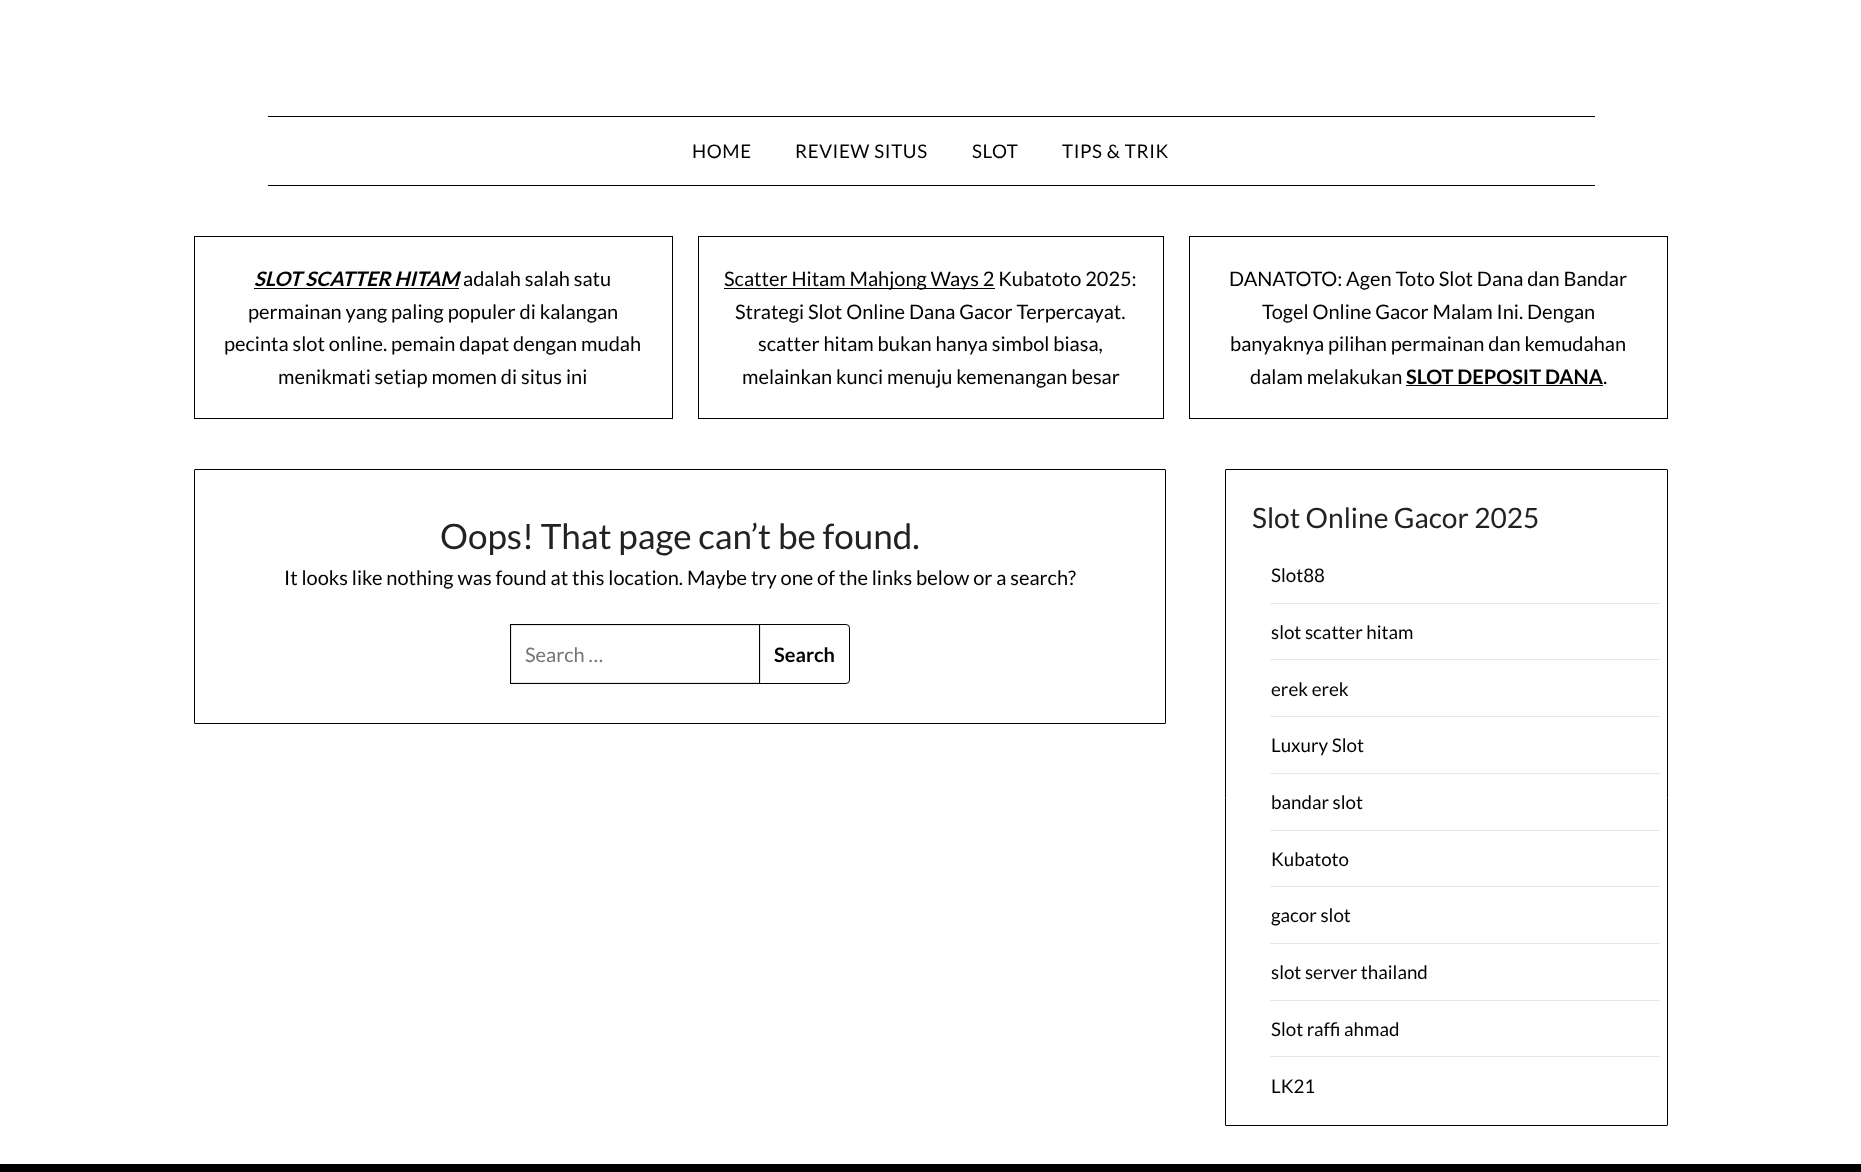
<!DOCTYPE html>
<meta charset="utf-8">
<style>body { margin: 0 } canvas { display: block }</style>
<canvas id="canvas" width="1861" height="1172"></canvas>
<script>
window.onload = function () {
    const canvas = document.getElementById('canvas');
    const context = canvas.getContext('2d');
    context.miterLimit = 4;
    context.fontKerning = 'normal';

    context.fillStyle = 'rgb(255, 255, 255)';
    context.fillRect(0, 0, 1861, 1172);
    context.fillStyle = 'rgb(0, 0, 0)';
    context.fillRect(268, 116, 1327, 1);
    context.fillRect(268, 185, 1327, 1);
    context.strokeStyle = 'rgb(0, 0, 0)';
    context.strokeRect(194.5, 236.5, 478, 182);
    context.fillRect(254, 288, 205, 1);
    context.strokeRect(698.5, 236.5, 465, 182);
    context.fillRect(724, 288, 271, 1);
    context.strokeRect(1189.5, 236.5, 478, 182);
    context.fillRect(1406, 385, 197, 1);
    context.beginPath();
    context.roundRect(194.5, 469.5, 971, 254, 0.5);
    context.stroke();
    context.fillRect(510, 624, 251, 1);
    context.fillRect(510, 683, 251, 1);
    context.fillRect(510, 624, 1, 60);
    context.strokeStyle = 'rgb(229, 230, 233)';
    context.strokeRect(511.5, 625.5, 249, 57);
    context.beginPath();
    context.roundRect(759.5, 624.5, 90, 59, [0, 3.5, 3.5, 0]);
    context.strokeStyle = 'rgb(0, 0, 0)';
    context.stroke();
    context.beginPath();
    context.roundRect(1225.5, 469.5, 442, 656, 0.5);
    context.stroke();
    context.fillStyle = 'rgb(230, 230, 230)';
    context.fillRect(1270, 603, 390, 1);
    context.fillRect(1270, 659, 390, 1);
    context.fillRect(1270, 716, 390, 1);
    context.fillRect(1270, 773, 390, 1);
    context.fillRect(1270, 830, 390, 1);
    context.fillRect(1270, 886, 390, 1);
    context.fillRect(1270, 943, 390, 1);
    context.fillRect(1270, 1000, 390, 1);
    context.fillRect(1270, 1056, 390, 1);
    context.fillStyle = 'rgb(0, 0, 0)';
    context.fillRect(0, 1164, 1861, 8);
    context.letterSpacing = '0.6px';
    context.font = '18.75px Lato';
    context.fillText('HOME', 692, 158);
    context.fillText('REVIEW SITUS', 795, 158);
    context.fillText('SLOT', 972, 158);
    context.fillText('TIPS & TRIK', 1062, 158);
    context.letterSpacing = '0px';
    context.font = 'italic bold 20px Lato';
    context.fillText('SLOT SCATTER HITAM', 254, 286);
    context.font = '20px Lato';
    context.fillText('adalah salah satu', 463, 286);
    context.fillText('permainan yang paling populer di kalangan', 248, 319);
    context.fillText('pecinta slot online. pemain dapat dengan mudah', 224, 351);
    context.fillText('menikmati setiap momen di situs ini', 278, 384);
    context.fillText('Scatter Hitam Mahjong Ways 2 Kubatoto 2025:', 724, 286);
    context.fillText('Strategi Slot Online Dana Gacor Terpercayat.', 735, 319);
    context.fillText('scatter hitam bukan hanya simbol biasa,', 758, 351);
    context.fillText('melainkan kunci menuju kemenangan besar', 742, 384);
    context.fillText('DANATOTO: Agen Toto Slot Dana dan Bandar', 1229, 286);
    context.fillText('Togel Online Gacor Malam Ini. Dengan', 1262, 319);
    context.fillText('banyaknya pilihan permainan dan kemudahan', 1230, 351);
    context.fillText('dalam melakukan', 1250, 384);
    context.font = 'bold 20px Lato';
    context.fillText('SLOT DEPOSIT DANA', 1406, 384);
    context.font = '20px Lato';
    context.fillText('.', 1603, 384);
    context.font = '35px Lato';
    context.fillStyle = 'rgb(34, 34, 34)';
    context.fillText('Oops! That page can’t be found.', 440, 549);
    context.font = '20px Lato';
    context.fillStyle = 'rgb(0, 0, 0)';
    context.fillText('It looks like nothing was found at this location. Maybe try one of the links below or a search?', 284, 585);
    context.fillStyle = 'rgb(117, 117, 117)';
    context.fillText('Search …', 525, 662);
    context.font = 'bold 20px Lato';
    context.fillStyle = 'rgb(0, 0, 0)';
    context.fillText('Search', 774, 662);
    context.font = '28.1px Lato';
    context.fillStyle = 'rgb(34, 34, 34)';
    context.fillText('Slot Online Gacor 2025', 1252, 528);
    context.font = '18.75px Lato';
    context.fillStyle = 'rgb(0, 0, 0)';
    context.fillText('Slot88', 1271, 582);
    context.fillText('slot scatter hitam', 1271, 639);
    context.fillText('erek erek', 1271, 696);
    context.fillText('Luxury Slot', 1271, 752);
    context.fillText('bandar slot', 1271, 809);
    context.fillText('Kubatoto', 1271, 866);
    context.fillText('gacor slot', 1271, 922);
    context.fillText('slot server thailand', 1271, 979);
    context.fillText('Slot raffi ahmad', 1271, 1036);
    context.fillText('LK21', 1271, 1093);
};
</script>
